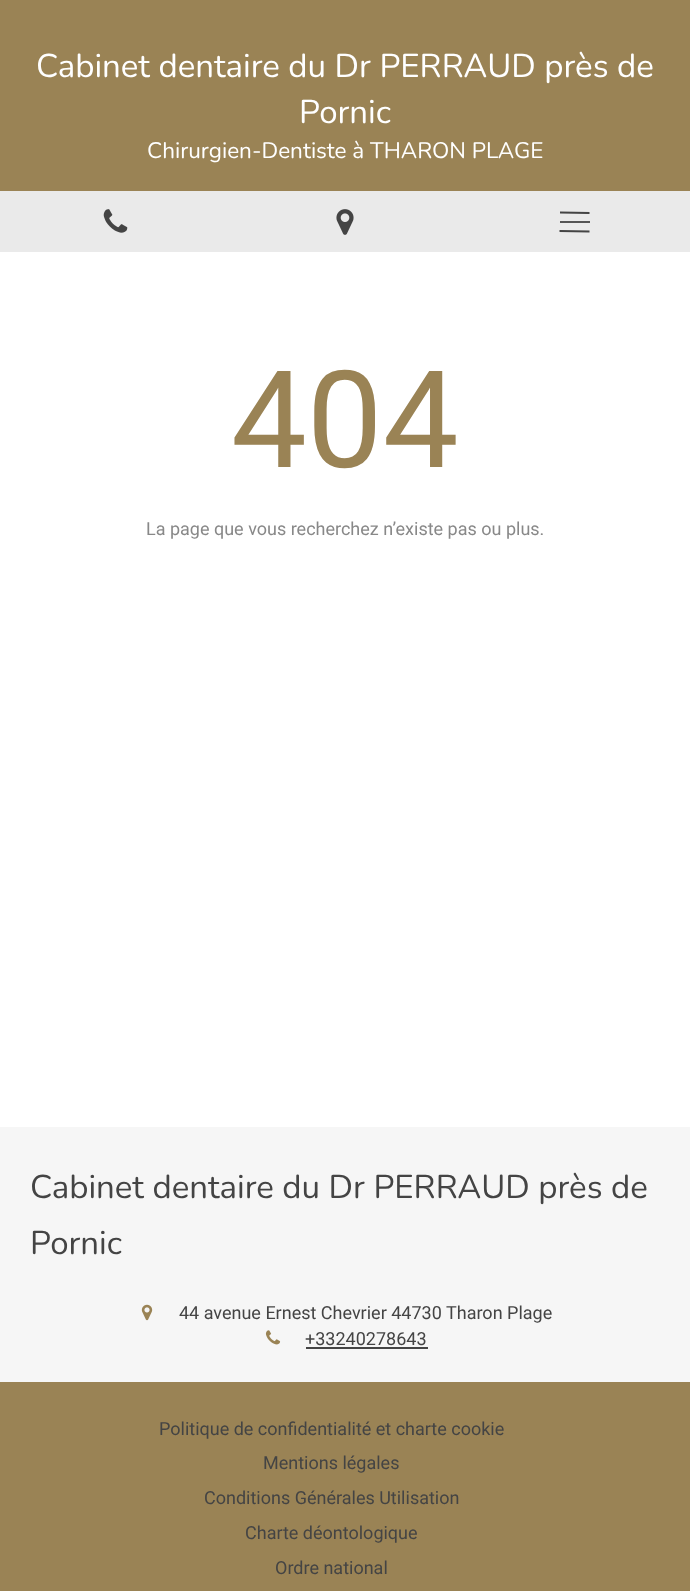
<!DOCTYPE html>
<meta charset="utf-8">
<style>body { margin: 0 } canvas { display: block }</style>
<canvas id="canvas" width="690" height="1591"></canvas>
<img id="img1" src="images/1.png" hidden>
<img id="img2" src="images/2.png" hidden>
<img id="img3" src="images/3.png" hidden>
<img id="img4" src="images/4.png" hidden>
<script>
window.onload = function () {
    const canvas = document.getElementById('canvas');
    const context = canvas.getContext('2d');
    context.miterLimit = 4;
    context.fontKerning = 'normal';

    context.fillStyle = 'rgb(255, 255, 255)';
    context.fillRect(0, 0, 690, 1591);
    context.fillStyle = 'rgb(154, 131, 85)';
    context.fillRect(0, 0, 690, 191);
    context.fillStyle = 'rgb(234, 234, 234)';
    context.fillRect(0, 191, 690, 61);
    context.drawImage(document.getElementById('img1'), 103, 209, 25, 24);
    context.drawImage(document.getElementById('img2'), 336, 209, 18, 26);
    context.save();
    context.beginPath();
    context.rect(560, 207, 30, 30);
    context.clip();
    context.beginPath();
    context.moveTo(559.5, 212.5);
    context.lineTo(589.5, 213);
    context.strokeStyle = 'rgb(68, 68, 68)';
    context.lineWidth = 1.8;
    context.stroke();
    context.restore();
    context.fillStyle = 'rgb(85, 85, 85)';
    context.fillRect(560, 221, 30, 2);
    context.beginPath();
    context.moveTo(559.5, 231);
    context.lineTo(589.5, 231.5);
    context.strokeStyle = 'rgb(68, 68, 68)';
    context.lineWidth = 1.8;
    context.stroke();
    context.fillStyle = 'rgb(246, 246, 246)';
    context.fillRect(0, 1127, 690, 255);
    context.drawImage(document.getElementById('img3'), 141, 1304, 12, 17);
    context.drawImage(document.getElementById('img4'), 265, 1330, 16, 15);
    context.fillStyle = 'rgb(68, 68, 68)';
    context.fillRect(306, 1347, 122, 2);
    context.fillStyle = 'rgb(154, 131, 85)';
    context.fillRect(0, 1382, 690, 209);
    context.font = '33px Nunito';
    context.fillStyle = 'rgb(255, 255, 255)';
    context.fillText('Cabinet dentaire du Dr PERRAUD près de', 36, 77);
    context.fillText('Pornic', 299, 123);
    context.font = '22.5px Nunito';
    context.fillText('Chirurgien-Dentiste à THARON PLAGE', 147, 158);
    context.font = '135px Roboto';
    context.fillStyle = 'rgb(154, 131, 85)';
    context.fillText('404', 231, 467);
    context.font = '18px Roboto';
    context.fillStyle = 'rgb(136, 136, 136)';
    context.fillText('La page que vous recherchez n’existe pas ou plus.', 146, 535);
    context.font = '33px Nunito';
    context.fillStyle = 'rgb(68, 68, 68)';
    context.fillText('Cabinet dentaire du Dr PERRAUD près de', 30, 1198);
    context.fillText('Pornic', 30, 1254);
    context.font = '18px Roboto';
    context.fillText('44 avenue Ernest Chevrier 44730', 179, 1319);
    context.fillText('Tharon Plage', 446, 1319);
    context.fillText('+33240278643', 305, 1345);
    context.fillText('Politique de confidentialité et charte cookie', 159, 1435);
    context.fillText('Mentions légales', 263, 1469);
    context.fillText('Conditions Générales Utilisation', 204, 1504);
    context.fillText('Charte déontologique', 245, 1539);
    context.fillText('Ordre national', 275, 1574);
};
</script>
